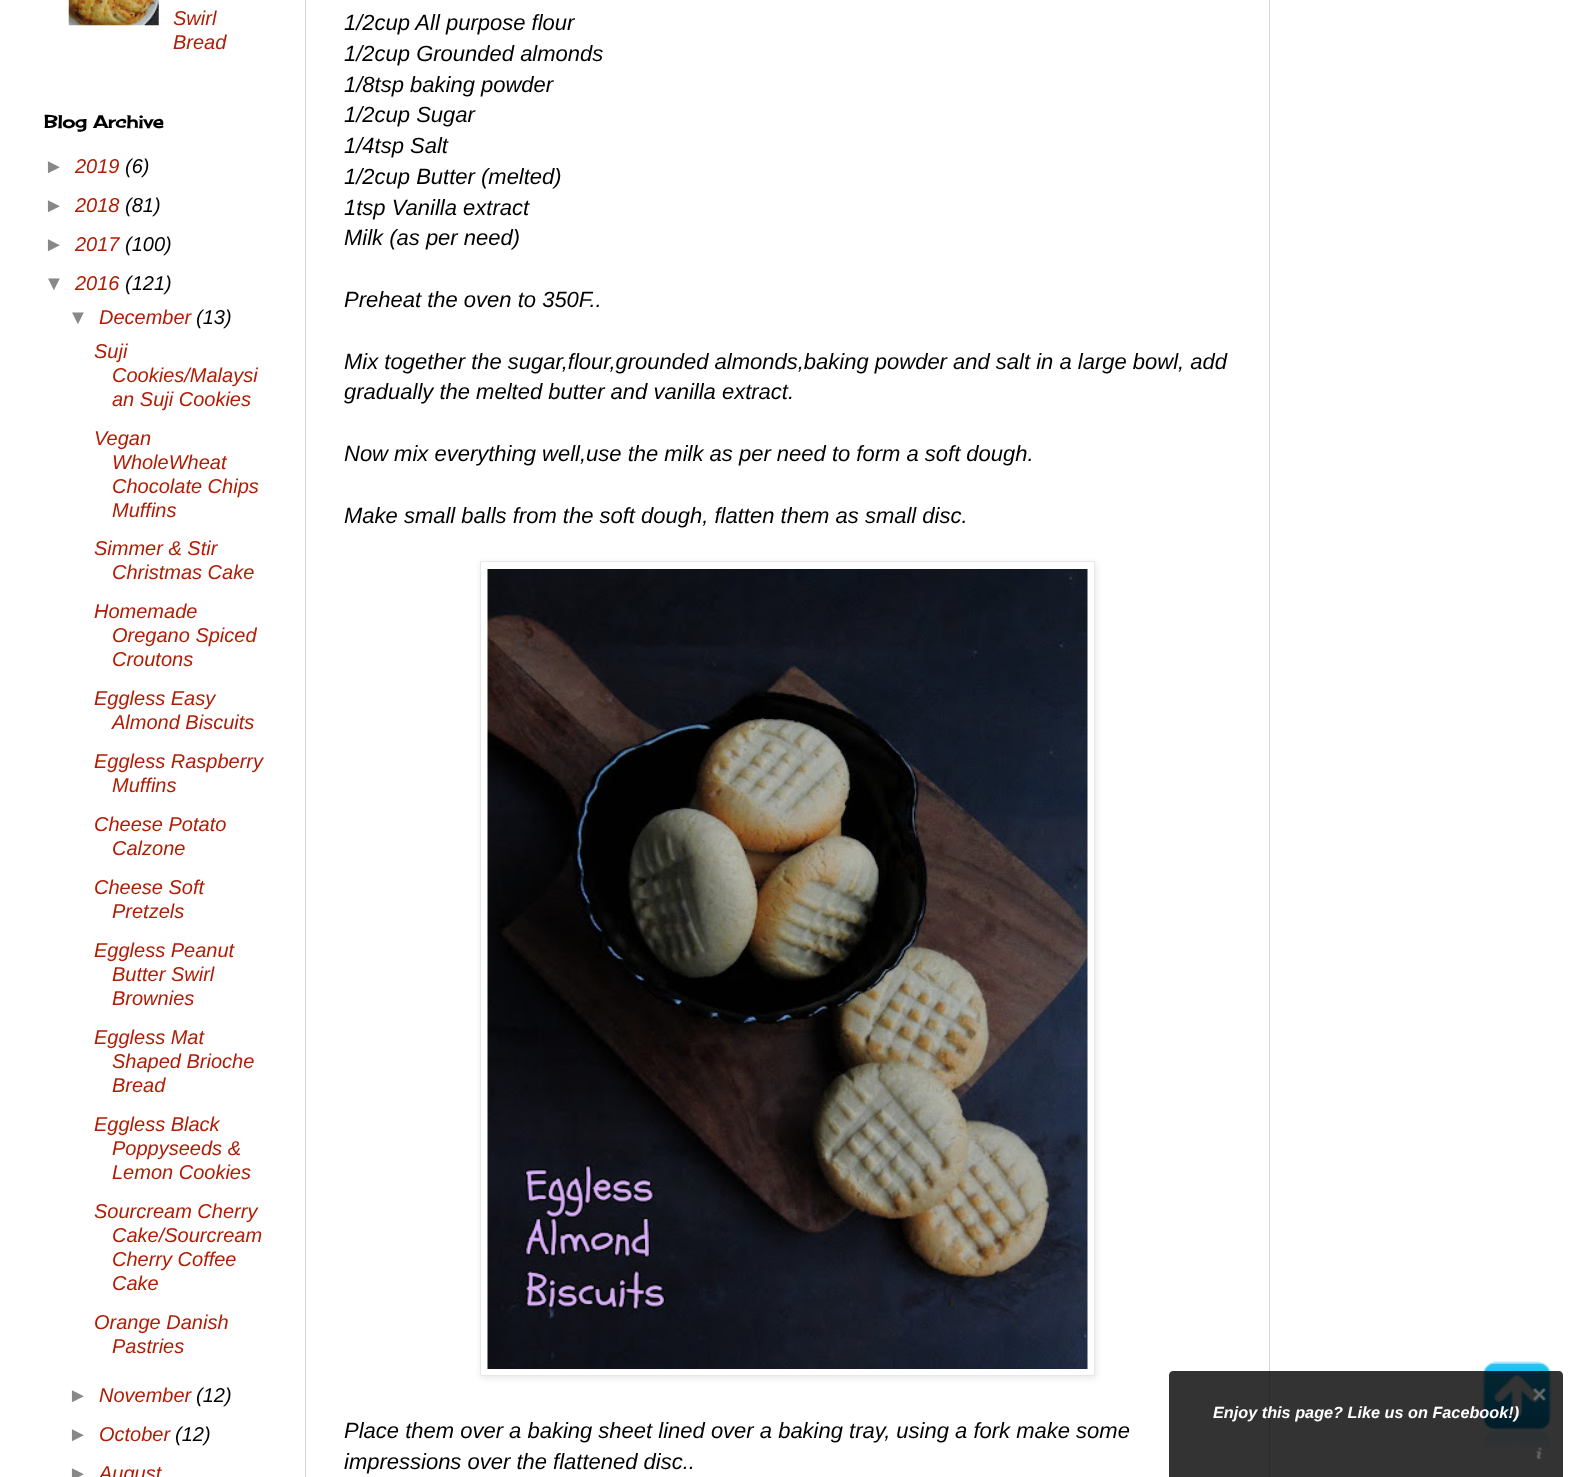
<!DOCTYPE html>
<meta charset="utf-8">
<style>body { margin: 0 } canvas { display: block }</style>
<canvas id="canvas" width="1574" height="1477"></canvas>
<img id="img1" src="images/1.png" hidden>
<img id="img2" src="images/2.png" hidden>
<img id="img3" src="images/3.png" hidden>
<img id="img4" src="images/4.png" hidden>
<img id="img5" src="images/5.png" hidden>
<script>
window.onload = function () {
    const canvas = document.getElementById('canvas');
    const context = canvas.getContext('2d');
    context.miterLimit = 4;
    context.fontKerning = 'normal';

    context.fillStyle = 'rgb(255, 255, 255)';
    context.fillRect(0, 0, 1574, 1477);
    context.fillStyle = 'rgb(213, 213, 213)';
    context.fillRect(305, 0, 1, 1477);
    context.fillRect(1269, 0, 1, 1477);
    context.drawImage(document.getElementById('img1'), 68, 0, 91, 26);
    context.fillStyle = 'rgba(0, 0, 0, 0.1)';
    context.filter = 'blur(3px)';
    context.beginPath();
    context.rect(481, 563, 615, 815);
    context.fill();
    context.filter = 'none';
    context.fillStyle = 'rgb(255, 255, 255)';
    context.beginPath();
    context.rect(480.5, 561.5, 614, 814);
    context.fill();
    context.strokeStyle = 'rgb(231, 231, 231)';
    context.stroke();
    context.drawImage(document.getElementById('img2'), 487, 569, 601, 800);
    context.drawImage(document.getElementById('img3'), 1482, 1361, 70, 89);
    context.fillStyle = 'rgba(0, 0, 0, 0.8)';
    context.beginPath();
    context.moveTo(1173, 1371);
    context.lineTo(1559, 1371);
    context.bezierCurveTo(1561, 1371, 1563, 1373, 1563, 1375);
    context.lineTo(1563, 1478);
    context.lineTo(1169, 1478);
    context.lineTo(1169, 1375);
    context.bezierCurveTo(1169, 1373, 1171, 1371, 1173, 1371);
    context.closePath();
    context.fill();
    context.drawImage(document.getElementById('img4'), 1533, 1388, 13, 13);
    context.drawImage(document.getElementById('img5'), 1536, 1447, 6, 12);
    context.font = 'italic 20px Liberation Sans';
    context.fillStyle = 'rgb(176, 29, 5)';
    context.fillText('Swirl', 173, 25);
    context.fillText('Bread', 173, 49);
    context.font = 'bold 17.5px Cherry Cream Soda';
    context.fillStyle = 'rgb(0, 0, 0)';
    context.fillText('Blog Archive', 44, 128);
    context.font = 'italic 20px Liberation Sans';
    context.fillStyle = 'rgb(136, 136, 136)';
    context.fillText('►', 44, 173);
    context.fillStyle = 'rgb(176, 29, 5)';
    context.fillText('2019', 75, 173);
    context.fillStyle = 'rgb(0, 0, 0)';
    context.fillText('(6)', 125, 173);
    context.fillStyle = 'rgb(136, 136, 136)';
    context.fillText('►', 44, 212);
    context.fillStyle = 'rgb(176, 29, 5)';
    context.fillText('2018', 75, 212);
    context.fillStyle = 'rgb(0, 0, 0)';
    context.fillText('(81)', 125, 212);
    context.fillStyle = 'rgb(136, 136, 136)';
    context.fillText('►', 44, 251);
    context.fillStyle = 'rgb(176, 29, 5)';
    context.fillText('2017', 75, 251);
    context.fillStyle = 'rgb(0, 0, 0)';
    context.fillText('(100)', 125, 251);
    context.fillStyle = 'rgb(136, 136, 136)';
    context.fillText('▼', 44, 290);
    context.fillStyle = 'rgb(176, 29, 5)';
    context.fillText('2016', 75, 290);
    context.fillStyle = 'rgb(0, 0, 0)';
    context.fillText('(121)', 125, 290);
    context.fillStyle = 'rgb(136, 136, 136)';
    context.fillText('▼', 68, 324);
    context.fillStyle = 'rgb(176, 29, 5)';
    context.fillText('December', 99, 324);
    context.fillStyle = 'rgb(0, 0, 0)';
    context.fillText('(13)', 196, 324);
    context.fillStyle = 'rgb(176, 29, 5)';
    context.fillText('Suji', 94, 358);
    context.fillText('Cookies/Malaysi', 112, 382);
    context.fillText('an Suji Cookies', 112, 406);
    context.fillText('Vegan', 94, 445);
    context.fillText('WholeWheat', 112, 469);
    context.fillText('Chocolate Chips', 112, 493);
    context.fillText('Muffins', 112, 517);
    context.fillText('Simmer & Stir', 94, 555);
    context.fillText('Christmas Cake', 112, 579);
    context.fillText('Homemade', 94, 618);
    context.fillText('Oregano Spiced', 112, 642);
    context.fillText('Croutons', 112, 666);
    context.fillText('Eggless Easy', 94, 705);
    context.fillText('Almond Biscuits', 112, 729);
    context.fillText('Eggless Raspberry', 94, 768);
    context.fillText('Muffins', 112, 792);
    context.fillText('Cheese Potato', 94, 831);
    context.fillText('Calzone', 112, 855);
    context.fillText('Cheese Soft', 94, 894);
    context.fillText('Pretzels', 112, 918);
    context.fillText('Eggless Peanut', 94, 957);
    context.fillText('Butter Swirl', 112, 981);
    context.fillText('Brownies', 112, 1005);
    context.fillText('Eggless Mat', 94, 1044);
    context.fillText('Shaped Brioche', 112, 1068);
    context.fillText('Bread', 112, 1092);
    context.fillText('Eggless Black', 94, 1131);
    context.fillText('Poppyseeds &', 112, 1155);
    context.fillText('Lemon Cookies', 112, 1179);
    context.fillText('Sourcream Cherry', 94, 1218);
    context.fillText('Cake/Sourcream', 112, 1242);
    context.fillText('Cherry Coffee', 112, 1266);
    context.fillText('Cake', 112, 1290);
    context.fillText('Orange Danish', 94, 1329);
    context.fillText('Pastries', 112, 1353);
    context.fillStyle = 'rgb(136, 136, 136)';
    context.fillText('►', 68, 1402);
    context.fillStyle = 'rgb(176, 29, 5)';
    context.fillText('November', 99, 1402);
    context.fillStyle = 'rgb(0, 0, 0)';
    context.fillText('(12)', 196, 1402);
    context.fillStyle = 'rgb(136, 136, 136)';
    context.fillText('►', 68, 1441);
    context.fillStyle = 'rgb(176, 29, 5)';
    context.fillText('October', 99, 1441);
    context.fillStyle = 'rgb(0, 0, 0)';
    context.fillText('(12)', 175, 1441);
    context.fillStyle = 'rgb(136, 136, 136)';
    context.fillText('►', 68, 1480);
    context.fillStyle = 'rgb(176, 29, 5)';
    context.fillText('August', 99, 1480);
    context.font = 'italic 22px Liberation Sans';
    context.fillStyle = 'rgb(0, 0, 0)';
    context.fillText('1/2cup All purpose flour', 344, 30);
    context.fillText('1/2cup Grounded almonds', 344, 61);
    context.fillText('1/8tsp baking powder', 344, 92);
    context.fillText('1/2cup Sugar', 344, 122);
    context.fillText('1/4tsp Salt', 344, 153);
    context.fillText('1/2cup Butter (melted)', 344, 184);
    context.fillText('1tsp Vanilla extract', 344, 215);
    context.fillText('Milk (as per need)', 344, 245);
    context.fillText('Preheat the oven to 350F..', 344, 307);
    context.fillText('Mix together the sugar,flour,grounded almonds,baking powder and salt in a large bowl, add', 344, 369);
    context.fillText('gradually the melted butter and vanilla extract.', 344, 399);
    context.fillText('Now mix everything well,use the milk as per need to form a soft dough.', 344, 461);
    context.fillText('Make small balls from the soft dough, flatten them as small disc.', 344, 523);
    context.fillText('Place them over a baking sheet lined over a baking tray, using a fork make some', 344, 1438);
    context.fillText('impressions over the flattened disc..', 344, 1469);
    context.font = 'italic bold 16.25px Liberation Sans';
    context.fillStyle = 'rgb(255, 255, 255)';
    context.fillText('Enjoy this page? Like us on Facebook!)', 1213, 1418);
};
</script>
